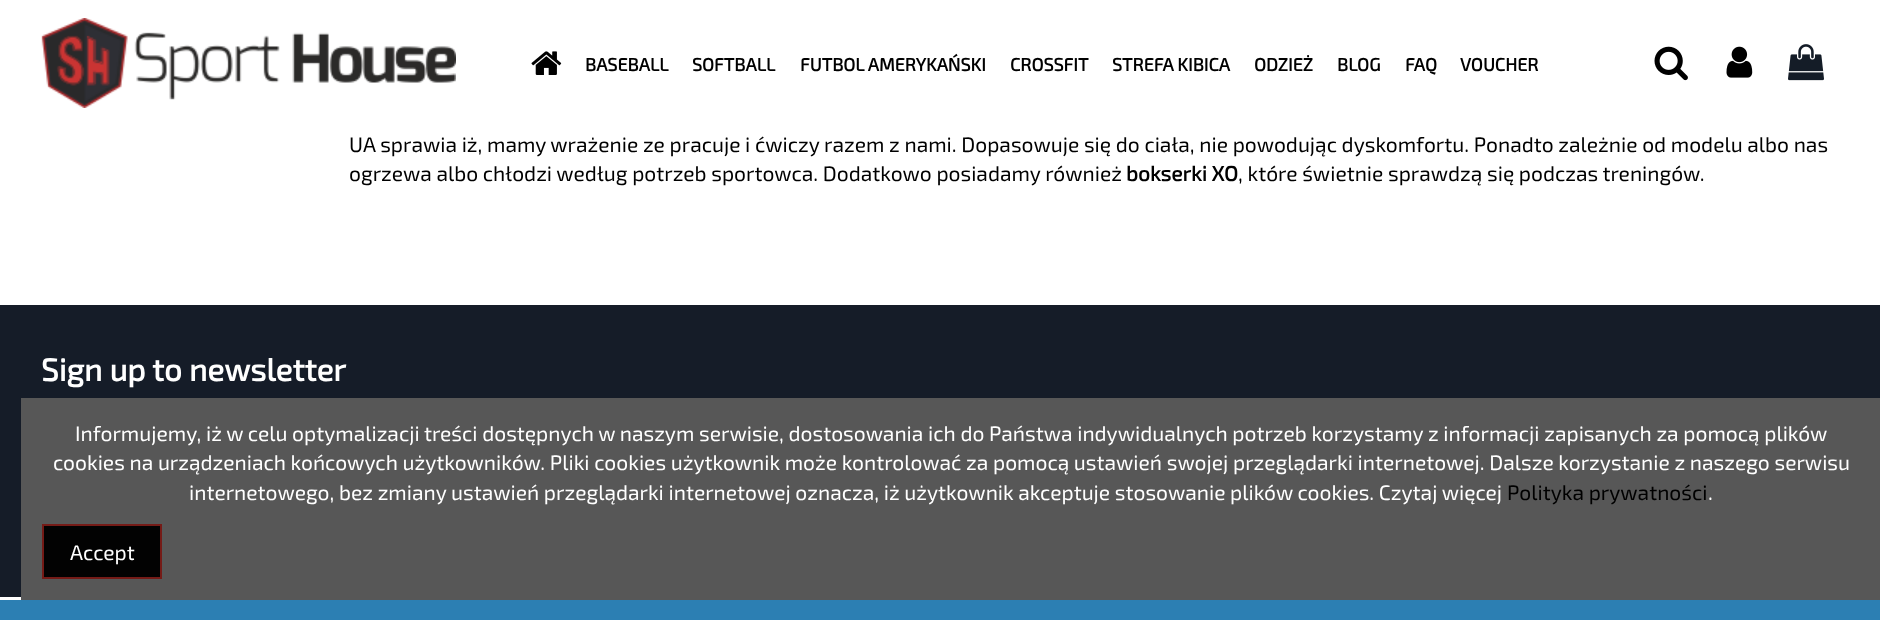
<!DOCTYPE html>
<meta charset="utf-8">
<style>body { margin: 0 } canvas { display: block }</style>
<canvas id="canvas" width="1880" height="620"></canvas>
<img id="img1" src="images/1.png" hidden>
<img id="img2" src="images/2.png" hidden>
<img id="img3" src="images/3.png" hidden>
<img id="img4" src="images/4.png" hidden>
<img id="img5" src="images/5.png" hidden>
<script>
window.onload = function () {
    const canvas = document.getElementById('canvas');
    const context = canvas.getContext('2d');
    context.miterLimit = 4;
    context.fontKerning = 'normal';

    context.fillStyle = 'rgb(255, 255, 255)';
    context.fillRect(0, 0, 1880, 620);
    context.drawImage(document.getElementById('img1'), 41, 18, 415, 90);
    context.drawImage(document.getElementById('img2'), 531, 51, 31, 24);
    context.drawImage(document.getElementById('img3'), 1654, 46, 34, 35);
    context.drawImage(document.getElementById('img4'), 1726, 46, 27, 32);
    context.drawImage(document.getElementById('img5'), 1788, 44, 36, 37);
    context.fillStyle = 'rgb(44, 127, 179)';
    context.fillRect(0, 600, 1880, 20);
    context.fillStyle = 'rgb(21, 28, 40)';
    context.fillRect(0, 305, 1880, 292);
    context.fillStyle = 'rgb(87, 87, 87)';
    context.fillRect(21, 398, 1859, 202);
    context.fillStyle = 'rgb(2, 2, 2)';
    context.beginPath();
    context.rect(43, 525, 118, 53);
    context.fill();
    context.strokeStyle = 'rgb(117, 27, 23)';
    context.lineWidth = 2;
    context.stroke();
    context.font = 'bold 18px "Exo 2"';
    context.fillStyle = 'rgb(0, 0, 0)';
    context.fillText('BASEBALL', 585, 71);
    context.fillText('SOFTBALL', 692, 71);
    context.fillText('FUTBOL AMERYKAŃSKI', 800, 71);
    context.fillText('CROSSFIT', 1010, 71);
    context.fillText('STREFA KIBICA', 1112, 71);
    context.fillText('ODZIEŻ', 1254, 71);
    context.fillText('BLOG', 1337, 71);
    context.fillText('FAQ', 1405, 71);
    context.fillText('VOUCHER', 1460, 71);
    context.font = '21px "Exo 2"';
    context.fillText('UA sprawia iż, mamy wrażenie ze pracuje i ćwiczy razem z nami. Dopasowuje się do ciała, nie powodując dyskomfortu. Ponadto zależnie od modelu albo nas', 349, 152);
    context.fillText('ogrzewa albo chłodzi według potrzeb sportowca. Dodatkowo posiadamy również', 349, 181);
    context.font = 'bold 21px "Exo 2"';
    context.fillText('bokserki XO', 1126, 181);
    context.font = '21px "Exo 2"';
    context.fillText(', które świetnie sprawdzą się podczas treningów.', 1238, 181);
    context.font = 'bold 31.5px "Exo 2"';
    context.fillStyle = 'rgb(255, 255, 255)';
    context.fillText('Sign up to newsletter', 41, 381);
    context.font = '21px "Exo 2"';
    context.fillText('Informujemy, iż w celu optymalizacji treści dostępnych w naszym serwisie, dostosowania ich do Państwa indywidualnych potrzeb korzystamy z informacji zapisanych za pomocą plików', 75, 441);
    context.fillText('cookies na urządzeniach końcowych użytkowników. Pliki cookies użytkownik może kontrolować za pomocą ustawień swojej przeglądarki internetowej. Dalsze korzystanie z naszego serwisu', 53, 470);
    context.fillText('internetowego, bez zmiany ustawień przeglądarki internetowej oznacza, iż użytkownik akceptuje stosowanie plików cookies. Czytaj więcej', 189, 500);
    context.fillStyle = 'rgb(0, 0, 0)';
    context.fillText('Polityka prywatności', 1507, 500);
    context.fillStyle = 'rgb(255, 255, 255)';
    context.fillText('.', 1708, 500);
    context.fillText('Accept', 70, 560);
};
</script>
